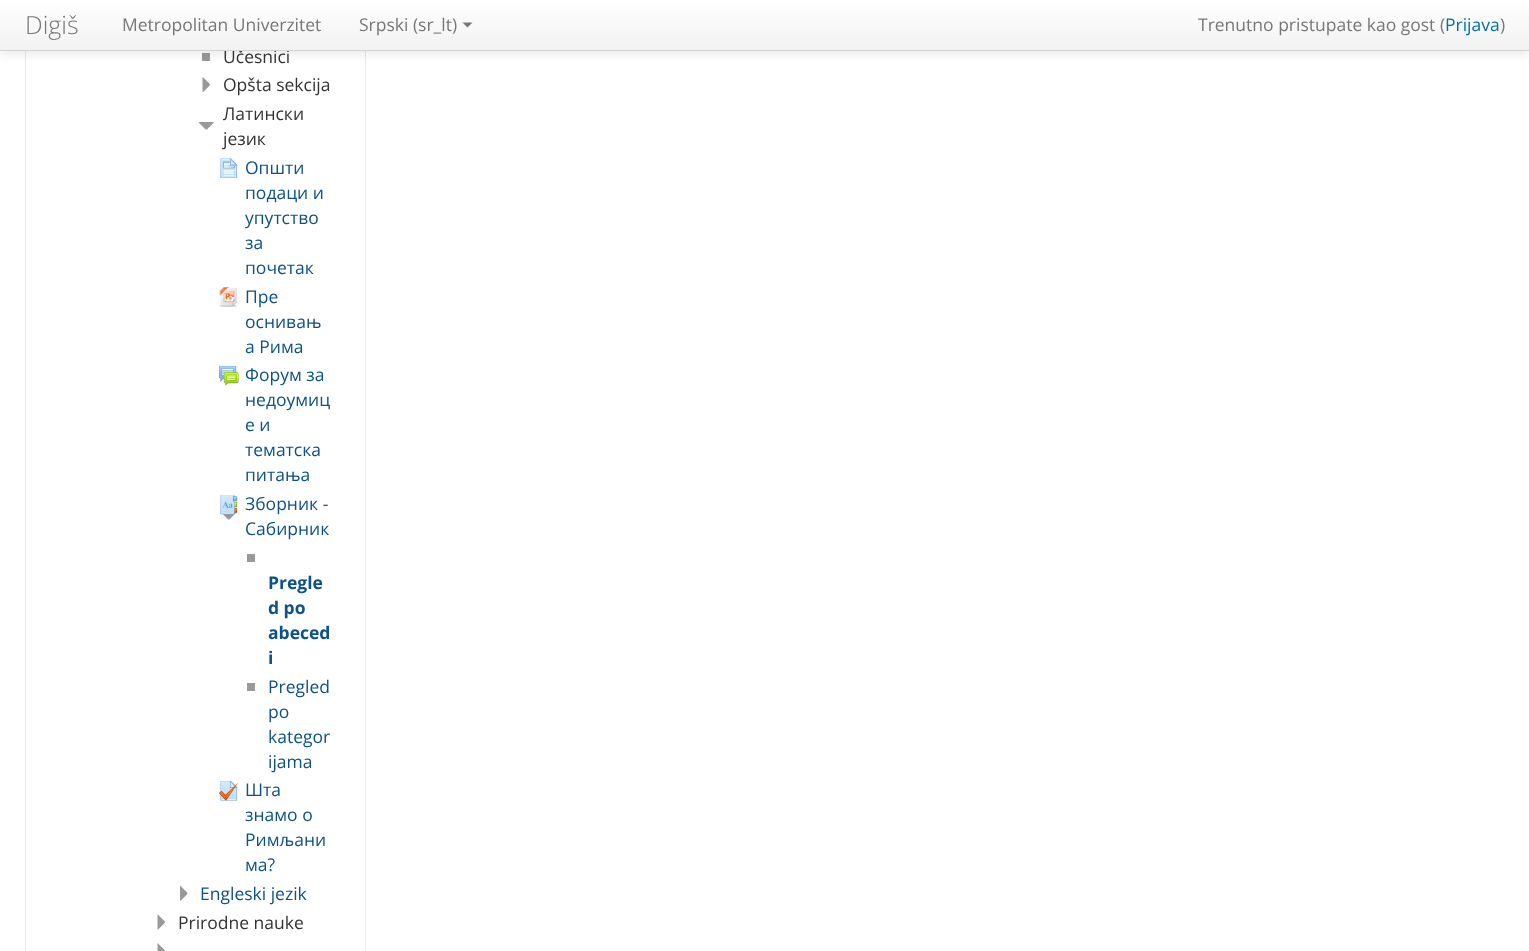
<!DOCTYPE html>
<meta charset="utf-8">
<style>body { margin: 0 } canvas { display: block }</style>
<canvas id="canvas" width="1529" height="951"></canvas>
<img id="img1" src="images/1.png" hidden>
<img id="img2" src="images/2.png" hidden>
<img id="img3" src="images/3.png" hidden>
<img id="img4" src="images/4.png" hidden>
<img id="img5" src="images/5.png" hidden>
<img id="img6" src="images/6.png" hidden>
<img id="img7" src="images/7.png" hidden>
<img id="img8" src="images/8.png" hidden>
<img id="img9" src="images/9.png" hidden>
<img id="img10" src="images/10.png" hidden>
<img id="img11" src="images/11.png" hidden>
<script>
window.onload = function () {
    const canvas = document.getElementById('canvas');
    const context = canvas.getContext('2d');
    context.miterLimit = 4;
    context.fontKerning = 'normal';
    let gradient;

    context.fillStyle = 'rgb(255, 255, 255)';
    context.fillRect(0, 0, 1529, 951);
    context.strokeStyle = 'rgb(233, 233, 233)';
    context.strokeRect(25.5, -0.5, 340, 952);
    context.fillStyle = 'rgb(153, 153, 153)';
    context.fillRect(202, 53, 8, 8);
    context.fillStyle = 'rgba(0, 0, 0, 0.1)';
    context.filter = 'blur(6px)';
    context.beginPath();
    context.rect(0, 1, 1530, 52);
    context.fill();
    context.filter = 'none';
    context.drawImage(document.getElementById('img1'), 202, 77, 8, 15);
    context.drawImage(document.getElementById('img2'), 198, 122, 16, 8);
    context.drawImage(document.getElementById('img3'), 220, 158, 18, 20);
    context.drawImage(document.getElementById('img4'), 219, 287, 19, 20);
    context.drawImage(document.getElementById('img5'), 219, 366, 20, 20);
    context.drawImage(document.getElementById('img6'), 222, 512, 15, 8);
    context.drawImage(document.getElementById('img7'), 220, 495, 18, 20);
    context.fillStyle = 'rgb(153, 153, 153)';
    context.fillRect(247, 554, 8, 8);
    context.fillRect(247, 683, 8, 8);
    context.drawImage(document.getElementById('img8'), 219, 781, 20, 20);
    context.drawImage(document.getElementById('img9'), 180, 885, 8, 16);
    context.drawImage(document.getElementById('img10'), 157, 914, 8, 16);
    context.drawImage(document.getElementById('img11'), 157, 943, 8, 8);
    context.font = '17.5px Open Sans';
    context.fillStyle = 'rgb(51, 51, 51)';
    context.fillText('Učesnici', 223, 63);
    gradient = context.createLinearGradient(765, 0, 765, 50);
    gradient.addColorStop(0, 'rgb(255, 255, 255)');
    gradient.addColorStop(1, 'rgb(242, 242, 242)');
    context.fillStyle = gradient;
    context.fillRect(0, 0, 1529, 50);
    context.fillStyle = 'rgb(119, 119, 119)';
    context.beginPath();
    context.moveTo(462.5, 22.5);
    context.lineTo(472.5, 22.5);
    context.lineTo(467.5, 27.5);
    context.closePath();
    context.fill();
    context.fillText('Srpski (sr_lt)', 359, 31);
    context.fillText('Metropolitan Univerzitet', 122, 31);
    context.fillText(')', 1500, 31);
    context.fillStyle = 'rgb(0, 112, 168)';
    context.fillText('Prijava', 1445, 31);
    context.fillStyle = 'rgb(119, 119, 119)';
    context.fillText('Trenutno pristupate kao gost (', 1198, 31);
    context.font = '300 25px Open Sans';
    context.fillText('Digiš', 25, 34);
    context.fillStyle = 'rgb(212, 212, 212)';
    context.fillRect(0, 50, 1529, 1);
    context.font = '17.5px Open Sans';
    context.fillStyle = 'rgb(51, 51, 51)';
    context.fillText('Opšta sekcija', 223, 91);
    context.fillText('Латински', 223, 120);
    context.fillText('језик', 223, 145);
    context.fillStyle = 'rgb(12, 81, 136)';
    context.fillText('Општи', 245, 174);
    context.fillText('подаци и', 245, 199);
    context.fillText('упутство', 245, 224);
    context.fillText('за', 245, 249);
    context.fillText('почетак', 245, 274);
    context.fillText('Пре', 245, 303);
    context.fillText('оснивањ', 245, 328);
    context.fillText('а Рима', 245, 353);
    context.fillText('Форум за', 245, 381);
    context.fillText('недоумиц', 245, 406);
    context.fillText('е и', 245, 431);
    context.fillText('тематска', 245, 456);
    context.fillText('питања', 245, 481);
    context.fillText('Зборник -', 245, 510);
    context.fillText('Сабирник', 245, 535);
    context.font = 'bold 17.5px Open Sans';
    context.fillText('Pregle', 268, 589);
    context.fillText('d po', 268, 614);
    context.fillText('abeced', 268, 639);
    context.fillText('i', 268, 664);
    context.font = '17.5px Open Sans';
    context.fillText('Pregled', 268, 693);
    context.fillText('po', 268, 718);
    context.fillText('kategor', 268, 743);
    context.fillText('ijama', 268, 768);
    context.fillText('Шта', 245, 796);
    context.fillText('знамо о', 245, 821);
    context.fillText('Римљани', 245, 846);
    context.fillText('ма?', 245, 871);
    context.fillText('Engleski jezik', 200, 900);
    context.fillStyle = 'rgb(51, 51, 51)';
    context.fillText('Prirodne nauke', 178, 929);
};
</script>
